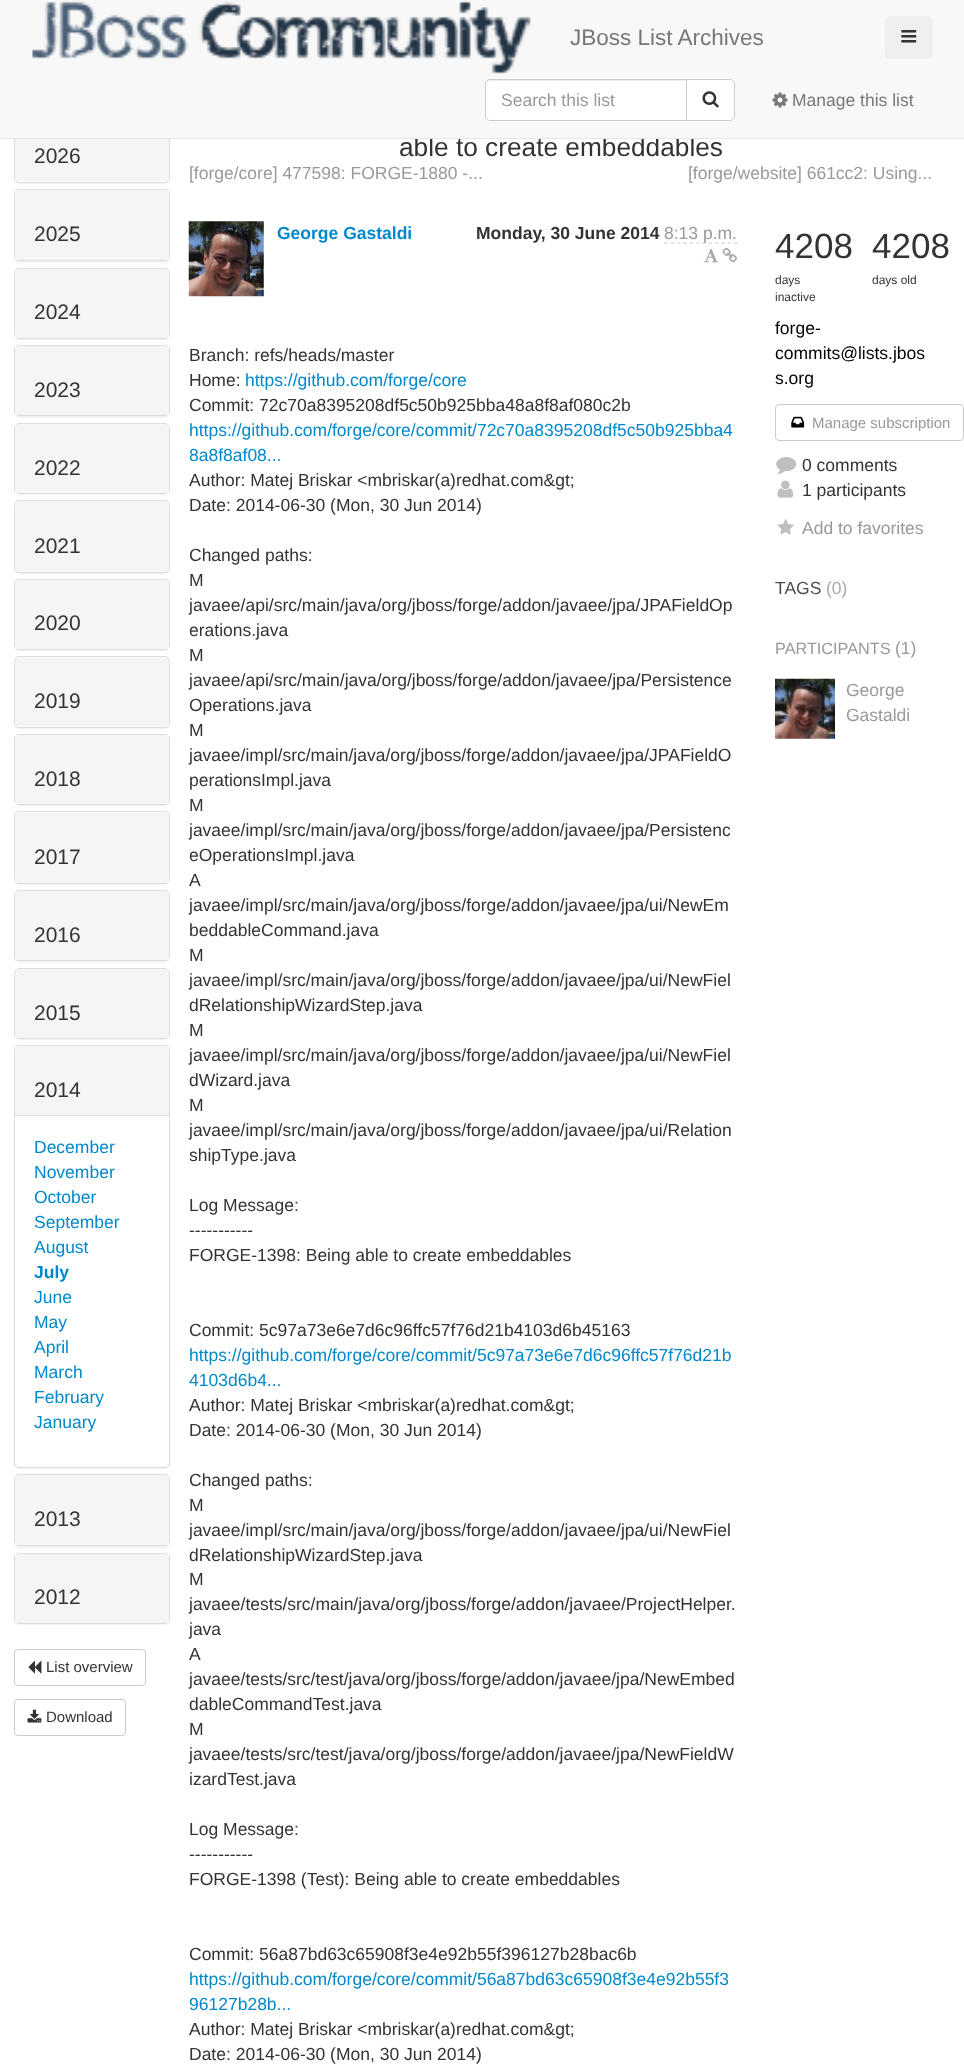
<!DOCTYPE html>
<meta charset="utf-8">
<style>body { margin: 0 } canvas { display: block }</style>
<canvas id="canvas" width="964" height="2069"></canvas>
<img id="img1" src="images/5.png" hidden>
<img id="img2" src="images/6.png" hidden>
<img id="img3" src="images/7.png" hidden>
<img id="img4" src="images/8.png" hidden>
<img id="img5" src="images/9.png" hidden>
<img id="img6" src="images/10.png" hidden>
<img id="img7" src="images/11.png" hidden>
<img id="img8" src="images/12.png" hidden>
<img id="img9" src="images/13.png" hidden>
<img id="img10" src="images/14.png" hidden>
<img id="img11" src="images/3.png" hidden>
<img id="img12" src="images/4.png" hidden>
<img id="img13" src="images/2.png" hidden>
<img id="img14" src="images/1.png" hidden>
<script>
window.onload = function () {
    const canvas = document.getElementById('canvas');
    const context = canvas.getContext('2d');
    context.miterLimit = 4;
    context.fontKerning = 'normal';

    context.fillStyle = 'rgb(255, 255, 255)';
    context.fillRect(0, 0, 964, 2069);
    context.fillStyle = 'rgba(0, 0, 0, 0.05)';
    context.filter = 'blur(0.5px)';
    context.beginPath();
    context.roundRect(14, 113, 156, 71, 5);
    context.fill();
    context.filter = 'none';
    context.fillStyle = 'rgb(255, 255, 255)';
    context.beginPath();
    context.roundRect(14.5, 111.5, 155, 71, 4.5);
    context.fill();
    context.strokeStyle = 'rgb(221, 221, 221)';
    context.stroke();
    context.fillStyle = 'rgb(245, 245, 245)';
    context.fillRect(15, 139, 154, 42);
    context.fillStyle = 'rgba(0, 0, 0, 0.05)';
    context.filter = 'blur(0.5px)';
    context.beginPath();
    context.roundRect(14, 190, 156, 73, 5);
    context.fill();
    context.filter = 'none';
    context.beginPath();
    context.roundRect(14.5, 189.5, 155, 71, 4.5);
    context.stroke();
    context.fillStyle = 'rgb(245, 245, 245)';
    context.beginPath();
    context.roundRect(15, 190, 154, 70, [4, 4, 0, 0]);
    context.fill();
    context.fillStyle = 'rgba(0, 0, 0, 0.05)';
    context.filter = 'blur(0.5px)';
    context.beginPath();
    context.roundRect(14, 269, 156, 71, 5);
    context.fill();
    context.filter = 'none';
    context.beginPath();
    context.roundRect(14.5, 268.5, 155, 70, 4.5);
    context.stroke();
    context.fillStyle = 'rgb(245, 245, 245)';
    context.beginPath();
    context.roundRect(15, 269, 154, 69, [4, 4, 0, 0]);
    context.fill();
    context.fillStyle = 'rgba(0, 0, 0, 0.05)';
    context.filter = 'blur(0.5px)';
    context.beginPath();
    context.roundRect(14, 346, 156, 72, 5);
    context.fill();
    context.filter = 'none';
    context.beginPath();
    context.roundRect(14.5, 345.5, 155, 70, 4.5);
    context.stroke();
    context.fillStyle = 'rgb(245, 245, 245)';
    context.beginPath();
    context.roundRect(15, 346, 154, 69, [4, 4, 0, 0]);
    context.fill();
    context.fillStyle = 'rgba(0, 0, 0, 0.05)';
    context.filter = 'blur(0.5px)';
    context.beginPath();
    context.roundRect(14, 424, 156, 71, 5);
    context.fill();
    context.filter = 'none';
    context.beginPath();
    context.roundRect(14.5, 423.5, 155, 70, 4.5);
    context.stroke();
    context.fillStyle = 'rgb(245, 245, 245)';
    context.beginPath();
    context.roundRect(15, 424, 154, 69, [4, 4, 0, 0]);
    context.fill();
    context.fillStyle = 'rgba(0, 0, 0, 0.05)';
    context.filter = 'blur(0.5px)';
    context.beginPath();
    context.roundRect(14, 501, 156, 73, 5);
    context.fill();
    context.filter = 'none';
    context.fillStyle = 'rgb(255, 255, 255)';
    context.beginPath();
    context.roundRect(14.5, 500.5, 155, 72, 4.5);
    context.fill();
    context.stroke();
    context.fillStyle = 'rgb(245, 245, 245)';
    context.beginPath();
    context.roundRect(15, 501, 154, 70, [4, 4, 0, 0]);
    context.fill();
    context.fillStyle = 'rgba(0, 0, 0, 0.05)';
    context.filter = 'blur(0.5px)';
    context.beginPath();
    context.roundRect(14, 580, 156, 71, 5);
    context.fill();
    context.filter = 'none';
    context.beginPath();
    context.roundRect(14.5, 579.5, 155, 70, 4.5);
    context.stroke();
    context.fillStyle = 'rgb(245, 245, 245)';
    context.beginPath();
    context.roundRect(15, 580, 154, 69, [4, 4, 0, 0]);
    context.fill();
    context.fillStyle = 'rgba(0, 0, 0, 0.05)';
    context.filter = 'blur(0.5px)';
    context.beginPath();
    context.roundRect(14, 658, 156, 71, 5);
    context.fill();
    context.filter = 'none';
    context.fillStyle = 'rgb(255, 255, 255)';
    context.beginPath();
    context.roundRect(14.5, 656.5, 155, 71, 4.5);
    context.fill();
    context.stroke();
    context.fillStyle = 'rgb(245, 245, 245)';
    context.beginPath();
    context.roundRect(15, 658, 154, 68, [4, 4, 0, 0]);
    context.fill();
    context.fillStyle = 'rgba(0, 0, 0, 0.05)';
    context.filter = 'blur(0.5px)';
    context.beginPath();
    context.roundRect(14, 735, 156, 71, 5);
    context.fill();
    context.filter = 'none';
    context.beginPath();
    context.roundRect(14.5, 734.5, 155, 70, 4.5);
    context.stroke();
    context.fillStyle = 'rgb(245, 245, 245)';
    context.beginPath();
    context.roundRect(15, 735, 154, 69, [4, 4, 0, 0]);
    context.fill();
    context.fillStyle = 'rgba(0, 0, 0, 0.05)';
    context.filter = 'blur(0.5px)';
    context.beginPath();
    context.roundRect(14, 813, 156, 72, 5);
    context.fill();
    context.filter = 'none';
    context.fillStyle = 'rgb(255, 255, 255)';
    context.beginPath();
    context.roundRect(14.5, 811.5, 155, 72, 4.5);
    context.fill();
    context.stroke();
    context.fillStyle = 'rgb(245, 245, 245)';
    context.beginPath();
    context.roundRect(15, 813, 154, 70, [4, 4, 0, 0]);
    context.fill();
    context.fillStyle = 'rgba(0, 0, 0, 0.05)';
    context.filter = 'blur(0.5px)';
    context.beginPath();
    context.roundRect(14, 891, 156, 72, 5);
    context.fill();
    context.filter = 'none';
    context.beginPath();
    context.roundRect(14.5, 890.5, 155, 70, 4.5);
    context.stroke();
    context.fillStyle = 'rgb(245, 245, 245)';
    context.beginPath();
    context.roundRect(15, 891, 154, 69, [4, 4, 0, 0]);
    context.fill();
    context.fillStyle = 'rgba(0, 0, 0, 0.05)';
    context.filter = 'blur(0.5px)';
    context.beginPath();
    context.roundRect(14, 969, 156, 71, 5);
    context.fill();
    context.filter = 'none';
    context.beginPath();
    context.roundRect(14.5, 968.5, 155, 70, 4.5);
    context.stroke();
    context.fillStyle = 'rgb(245, 245, 245)';
    context.beginPath();
    context.roundRect(15, 969, 154, 69, [4, 4, 0, 0]);
    context.fill();
    context.fillStyle = 'rgba(0, 0, 0, 0.05)';
    context.filter = 'blur(0.5px)';
    context.beginPath();
    context.roundRect(14, 1046, 156, 423, 5);
    context.fill();
    context.filter = 'none';
    context.fillStyle = 'rgb(255, 255, 255)';
    context.beginPath();
    context.roundRect(14.5, 1045.5, 155, 422, 4.5);
    context.fill();
    context.stroke();
    context.fillStyle = 'rgb(245, 245, 245)';
    context.beginPath();
    context.roundRect(15, 1046, 154, 69, [4, 4, 0, 0]);
    context.fill();
    context.fillStyle = 'rgb(221, 221, 221)';
    context.fillRect(15, 1115, 154, 1);
    context.fillStyle = 'rgba(0, 0, 0, 0.05)';
    context.filter = 'blur(0.5px)';
    context.beginPath();
    context.roundRect(14, 1475, 156, 73, 5);
    context.fill();
    context.filter = 'none';
    context.beginPath();
    context.roundRect(14.5, 1474.5, 155, 71, 4.5);
    context.stroke();
    context.fillStyle = 'rgb(245, 245, 245)';
    context.beginPath();
    context.roundRect(15, 1475, 154, 70, [4, 4, 0, 0]);
    context.fill();
    context.fillStyle = 'rgba(0, 0, 0, 0.05)';
    context.filter = 'blur(0.5px)';
    context.beginPath();
    context.roundRect(14, 1554, 156, 71, 5);
    context.fill();
    context.filter = 'none';
    context.beginPath();
    context.roundRect(14.5, 1553.5, 155, 70, 4.5);
    context.stroke();
    context.fillStyle = 'rgb(245, 245, 245)';
    context.beginPath();
    context.roundRect(15, 1554, 154, 69, [4, 4, 0, 0]);
    context.fill();
    context.beginPath();
    context.roundRect(14.5, 1649.5, 131, 36, 3.5);
    context.strokeStyle = 'rgb(204, 204, 204)';
    context.stroke();
    context.drawImage(document.getElementById('img1'), 28, 1660, 14, 14);
    context.beginPath();
    context.roundRect(14.5, 1699.5, 111, 36, 3.5);
    context.stroke();
    context.drawImage(document.getElementById('img2'), 27, 1709, 15, 14);
    context.drawImage(document.getElementById('img3'), 188, 221, 76, 76);
    context.beginPath();
    context.moveTo(664, 243);
    context.lineTo(737.5, 243);
    context.lineWidth = 1.2;
    context.setLineDash([3.75, 2.61]);
    context.stroke();
    context.drawImage(document.getElementById('img4'), 703, 248, 16, 15);
    context.drawImage(document.getElementById('img5'), 722, 247, 15, 16);
    context.beginPath();
    context.roundRect(775.5, 404.5, 188, 36, 3.5);
    context.lineWidth = 1;
    context.setLineDash([]);
    context.stroke();
    context.drawImage(document.getElementById('img6'), 791, 416, 14, 12);
    context.drawImage(document.getElementById('img7'), 776, 457, 21, 17);
    context.drawImage(document.getElementById('img8'), 777, 480, 17, 18);
    context.drawImage(document.getElementById('img9'), 777, 519, 17, 16);
    context.drawImage(document.getElementById('img10'), 775, 678, 60, 61);
    context.font = '21px Liberation Sans';
    context.fillStyle = 'rgb(51, 51, 51)';
    context.fillText('2026', 34, 163);
    context.fillText('2025', 34, 241);
    context.fillText('2024', 34, 319);
    context.fillText('2023', 34, 397);
    context.fillText('2022', 34, 475);
    context.fillText('2021', 34, 553);
    context.fillText('2020', 34, 630);
    context.fillText('2019', 34, 708);
    context.fillText('2018', 34, 786);
    context.fillText('2017', 34, 864);
    context.fillText('2016', 34, 942);
    context.fillText('2015', 34, 1020);
    context.fillText('2014', 34, 1097);
    context.font = '17.5px Liberation Sans';
    context.fillStyle = 'rgb(0, 136, 204)';
    context.fillText('December', 34, 1153);
    context.fillText('November', 34, 1178);
    context.fillText('October', 34, 1203);
    context.fillText('September', 34, 1228);
    context.fillText('August', 34, 1253);
    context.font = 'bold 17.5px Liberation Sans';
    context.fillText('July', 34, 1278);
    context.font = '17.5px Liberation Sans';
    context.fillText('June', 34, 1303);
    context.fillText('May', 34, 1328);
    context.fillText('April', 34, 1353);
    context.fillText('March', 34, 1378);
    context.fillText('February', 34, 1403);
    context.fillText('January', 34, 1428);
    context.font = '21px Liberation Sans';
    context.fillStyle = 'rgb(51, 51, 51)';
    context.fillText('2013', 34, 1526);
    context.fillText('2012', 34, 1604);
    context.font = '15px Liberation Sans';
    context.fillText('List overview', 46, 1672);
    context.fillText('Download', 46, 1722);
    context.font = '26.25px Liberation Sans';
    context.fillText('able to create embeddables', 399, 156);
    context.fillStyle = 'rgb(248, 248, 248)';
    context.fillRect(0, 0, 964, 138);
    context.fillStyle = 'rgb(255, 255, 255)';
    context.beginPath();
    context.roundRect(485, 79, 203, 42, [5, 0, 0, 5]);
    context.fill();
    context.fillStyle = 'rgb(236, 236, 236)';
    context.beginPath();
    context.moveTo(490, 81);
    context.lineTo(686, 81);
    context.lineTo(686, 80);
    context.lineTo(490, 80);
    context.bezierCurveTo(487, 80, 486, 82, 486, 85);
    context.bezierCurveTo(486, 83, 488, 81, 490, 81);
    context.closePath();
    context.fill();
    context.beginPath();
    context.roundRect(485.5, 79.5, 202, 41, [4.5, 0, 0, 4.5]);
    context.stroke();
    context.fillStyle = 'rgb(255, 255, 255)';
    context.beginPath();
    context.roundRect(686.5, 79.5, 48, 41, [0, 4.5, 4.5, 0]);
    context.fill();
    context.stroke();
    context.drawImage(document.getElementById('img11'), 702, 91, 17, 17);
    context.font = '17.5px Liberation Sans';
    context.fillStyle = 'rgb(153, 153, 153)';
    context.fillText('Search this list', 501, 106);
    context.fillStyle = 'rgb(119, 119, 119)';
    context.fillText('Manage this list', 792, 106);
    context.drawImage(document.getElementById('img12'), 772, 92, 16, 16);
    context.fillStyle = 'rgb(239, 239, 239)';
    context.beginPath();
    context.roundRect(885, 16, 48, 43, 5);
    context.fill();
    context.drawImage(document.getElementById('img13'), 901, 30, 16, 13);
    context.font = '22.5px Liberation Sans';
    context.fillStyle = 'rgb(119, 119, 119)';
    context.fillText('JBoss List Archives', 570, 45);
    context.drawImage(document.getElementById('img14'), 32, 1, 499, 73);
    context.fillStyle = 'rgb(231, 231, 231)';
    context.fillRect(0, 138, 964, 1);
    context.font = '17.5px Liberation Sans';
    context.fillStyle = 'rgb(153, 153, 153)';
    context.fillText('[forge/core] 477598: FORGE-1880 -...', 189, 179);
    context.fillText('[forge/website] 661cc2: Using...', 688, 179);
    context.font = 'bold 17.5px Liberation Sans';
    context.fillStyle = 'rgb(0, 136, 204)';
    context.fillText('George Gastaldi', 277, 239);
    context.fillStyle = 'rgb(51, 51, 51)';
    context.fillText('Monday, 30 June 2014', 476, 239);
    context.font = '17.5px Liberation Sans';
    context.fillStyle = 'rgb(153, 153, 153)';
    context.fillText('8:13 p.m.', 664, 239);
    context.fillStyle = 'rgb(51, 51, 51)';
    context.fillText('Branch: refs/heads/master', 189, 361);
    context.fillText('Home:', 189, 386);
    context.fillStyle = 'rgb(0, 136, 204)';
    context.fillText('https://github.com/forge/core', 245, 386);
    context.fillStyle = 'rgb(51, 51, 51)';
    context.fillText('Commit: 72c70a8395208df5c50b925bba48a8f8af080c2b', 189, 411);
    context.fillStyle = 'rgb(0, 136, 204)';
    context.fillText('https://github.com/forge/core/commit/72c70a8395208df5c50b925bba4', 189, 436);
    context.fillText('8a8f8af08...', 189, 461);
    context.fillStyle = 'rgb(51, 51, 51)';
    context.fillText('Author: Matej Briskar <mbriskar(a)redhat.com&gt;', 189, 486);
    context.fillText('Date: 2014-06-30 (Mon, 30 Jun 2014)', 189, 511);
    context.fillText('Changed paths:', 189, 561);
    context.fillText('M', 189, 586);
    context.fillText('javaee/api/src/main/java/org/jboss/forge/addon/javaee/jpa/JPAFieldOp', 189, 611);
    context.fillText('erations.java', 189, 636);
    context.fillText('M', 189, 661);
    context.fillText('javaee/api/src/main/java/org/jboss/forge/addon/javaee/jpa/Persistence', 189, 686);
    context.fillText('Operations.java', 189, 711);
    context.fillText('M', 189, 736);
    context.fillText('javaee/impl/src/main/java/org/jboss/forge/addon/javaee/jpa/JPAFieldO', 189, 761);
    context.fillText('perationsImpl.java', 189, 786);
    context.fillText('M', 189, 811);
    context.fillText('javaee/impl/src/main/java/org/jboss/forge/addon/javaee/jpa/Persistenc', 189, 836);
    context.fillText('eOperationsImpl.java', 189, 861);
    context.fillText('A', 189, 886);
    context.fillText('javaee/impl/src/main/java/org/jboss/forge/addon/javaee/jpa/ui/NewEm', 189, 911);
    context.fillText('beddableCommand.java', 189, 936);
    context.fillText('M', 189, 961);
    context.fillText('javaee/impl/src/main/java/org/jboss/forge/addon/javaee/jpa/ui/NewFiel', 189, 986);
    context.fillText('dRelationshipWizardStep.java', 189, 1011);
    context.fillText('M', 189, 1036);
    context.fillText('javaee/impl/src/main/java/org/jboss/forge/addon/javaee/jpa/ui/NewFiel', 189, 1061);
    context.fillText('dWizard.java', 189, 1086);
    context.fillText('M', 189, 1111);
    context.fillText('javaee/impl/src/main/java/org/jboss/forge/addon/javaee/jpa/ui/Relation', 189, 1136);
    context.fillText('shipType.java', 189, 1161);
    context.fillText('Log Message:', 189, 1211);
    context.fillText('-----------', 189, 1236);
    context.fillText('FORGE-1398: Being able to create embeddables', 189, 1261);
    context.fillText('Commit: 5c97a73e6e7d6c96ffc57f76d21b4103d6b45163', 189, 1336);
    context.fillStyle = 'rgb(0, 136, 204)';
    context.fillText('https://github.com/forge/core/commit/5c97a73e6e7d6c96ffc57f76d21b', 189, 1361);
    context.fillText('4103d6b4...', 189, 1386);
    context.fillStyle = 'rgb(51, 51, 51)';
    context.fillText('Author: Matej Briskar <mbriskar(a)redhat.com&gt;', 189, 1411);
    context.fillText('Date: 2014-06-30 (Mon, 30 Jun 2014)', 189, 1436);
    context.fillText('Changed paths:', 189, 1486);
    context.fillText('M', 189, 1511);
    context.fillText('javaee/impl/src/main/java/org/jboss/forge/addon/javaee/jpa/ui/NewFiel', 189, 1536);
    context.fillText('dRelationshipWizardStep.java', 189, 1561);
    context.fillText('M', 189, 1585);
    context.fillText('javaee/tests/src/main/java/org/jboss/forge/addon/javaee/ProjectHelper.', 189, 1610);
    context.fillText('java', 189, 1635);
    context.fillText('A', 189, 1660);
    context.fillText('javaee/tests/src/test/java/org/jboss/forge/addon/javaee/jpa/NewEmbed', 189, 1685);
    context.fillText('dableCommandTest.java', 189, 1710);
    context.fillText('M', 189, 1735);
    context.fillText('javaee/tests/src/test/java/org/jboss/forge/addon/javaee/jpa/NewFieldW', 189, 1760);
    context.fillText('izardTest.java', 189, 1785);
    context.fillText('Log Message:', 189, 1835);
    context.fillText('-----------', 189, 1860);
    context.fillText('FORGE-1398 (Test): Being able to create embeddables', 189, 1885);
    context.fillText('Commit: 56a87bd63c65908f3e4e92b55f396127b28bac6b', 189, 1960);
    context.fillStyle = 'rgb(0, 136, 204)';
    context.fillText('https://github.com/forge/core/commit/56a87bd63c65908f3e4e92b55f3', 189, 1985);
    context.fillText('96127b28b...', 189, 2010);
    context.fillStyle = 'rgb(51, 51, 51)';
    context.fillText('Author: Matej Briskar <mbriskar(a)redhat.com&gt;', 189, 2035);
    context.fillText('Date: 2014-06-30 (Mon, 30 Jun 2014)', 189, 2060);
    context.font = '35px Liberation Sans';
    context.fillText('4208', 775, 258);
    context.font = '12px Liberation Sans';
    context.fillText('days', 775, 284);
    context.fillText('inactive', 775, 301);
    context.font = '35px Liberation Sans';
    context.fillText('4208', 872, 258);
    context.font = '12px Liberation Sans';
    context.fillText('days old', 872, 284);
    context.font = '17.5px Liberation Sans';
    context.fillStyle = 'rgb(0, 0, 0)';
    context.fillText('forge-', 775, 334);
    context.fillText('commits@lists.jbos', 775, 359);
    context.fillText('s.org', 775, 384);
    context.font = '15px Liberation Sans';
    context.fillStyle = 'rgb(153, 153, 153)';
    context.fillText('Manage subscription', 812, 428);
    context.font = '17.5px Liberation Sans';
    context.fillStyle = 'rgb(51, 51, 51)';
    context.fillText('0 comments', 802, 471);
    context.fillText('1 participants', 802, 496);
    context.fillStyle = 'rgb(153, 153, 153)';
    context.fillText('Add to favorites', 802, 534);
    context.fillStyle = 'rgb(77, 77, 77)';
    context.fillText('TAGS', 775, 594);
    context.fillStyle = 'rgb(167, 169, 172)';
    context.fillText('(0)', 826, 594);
    context.font = '16.25px Liberation Sans';
    context.fillStyle = 'rgb(153, 153, 153)';
    context.fillText('PARTICIPANTS', 775, 654);
    context.font = '17.5px Liberation Sans';
    context.fillText('(1)', 895, 654);
    context.fillText('George', 846, 696);
    context.fillText('Gastaldi', 846, 721);
};
</script>
